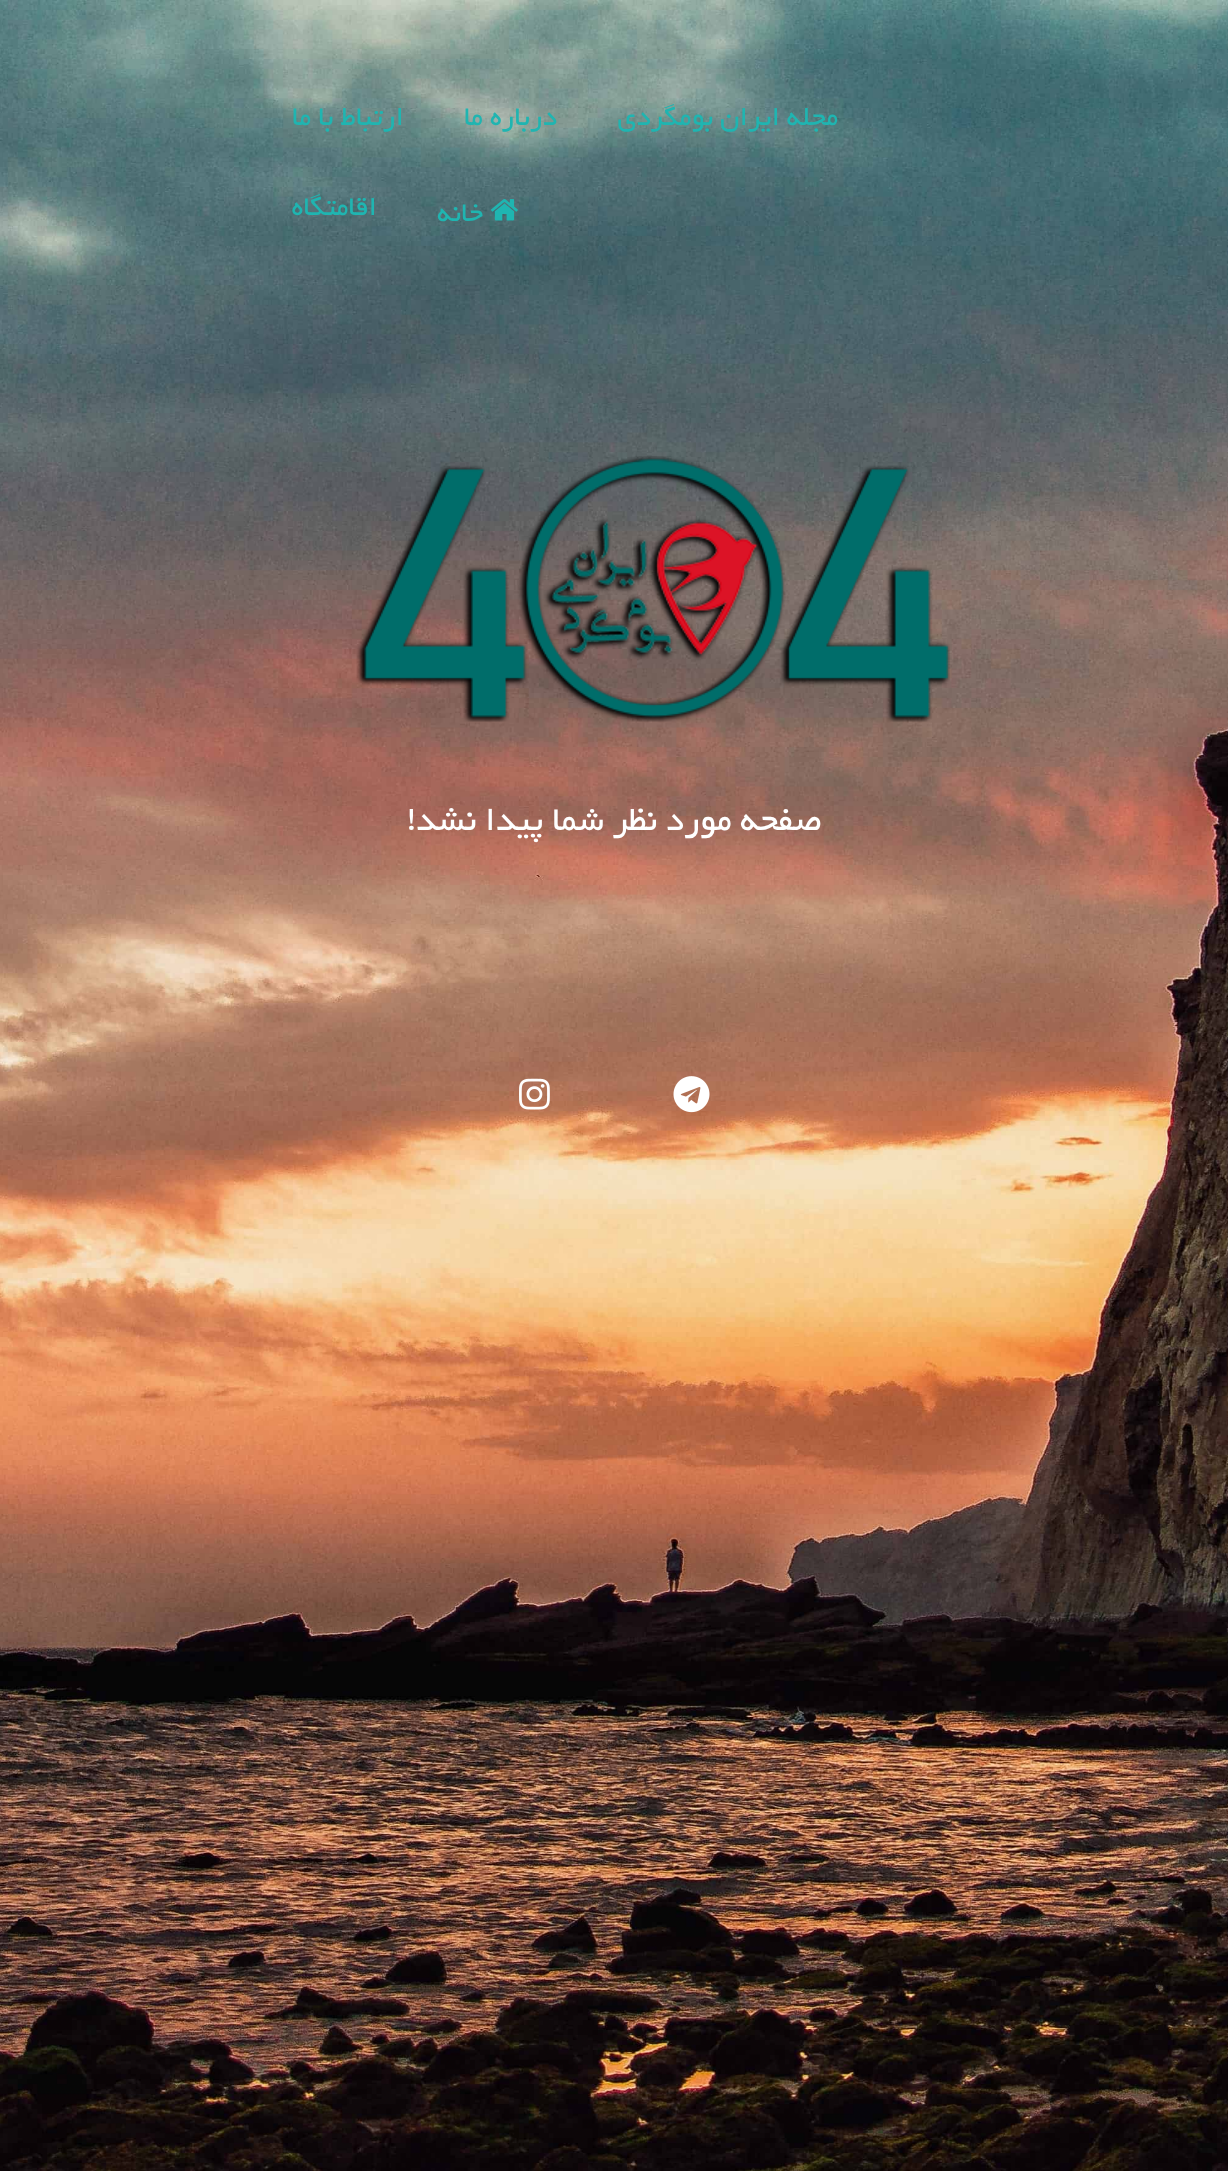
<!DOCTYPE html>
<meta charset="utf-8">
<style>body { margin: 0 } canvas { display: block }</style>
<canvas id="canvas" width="1228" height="2171"></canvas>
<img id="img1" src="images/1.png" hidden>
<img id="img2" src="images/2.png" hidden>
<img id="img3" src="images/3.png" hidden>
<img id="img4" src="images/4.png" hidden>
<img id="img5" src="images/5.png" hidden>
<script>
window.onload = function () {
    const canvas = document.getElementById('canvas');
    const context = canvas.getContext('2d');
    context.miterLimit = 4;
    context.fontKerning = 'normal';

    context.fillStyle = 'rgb(255, 255, 255)';
    context.fillRect(0, 0, 1228, 2171);
    context.drawImage(document.getElementById('img1'), 0, 0, 1228, 2171);
    context.drawImage(document.getElementById('img2'), 491, 199, 27, 22);
    context.drawImage(document.getElementById('img3'), 356, 456, 594, 266);
    context.drawImage(document.getElementById('img4'), 673, 1076, 37, 37);
    context.drawImage(document.getElementById('img5'), 519, 1078, 31, 32);
    context.direction = 'rtl';
    context.font = '30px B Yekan';
    context.fillStyle = 'rgb(31, 181, 177)';
    context.fillText('مجله ایران بومگردی', 838, 125);
    context.fillText('درباره ما', 557, 125);
    context.fillText('ارتباط با ما', 404, 125);
    context.fillText('خانه', 483, 221);
    context.fillText('اقامتگاه', 377, 215);
    context.font = '37.5px B Yekan';
    context.fillStyle = 'rgb(255, 255, 255)';
    context.fillText('صفحه مورد نظر شما پیدا نشد', 822, 830);
    context.direction = 'ltr';
    context.fillText('!', 407, 830);
};
</script>
